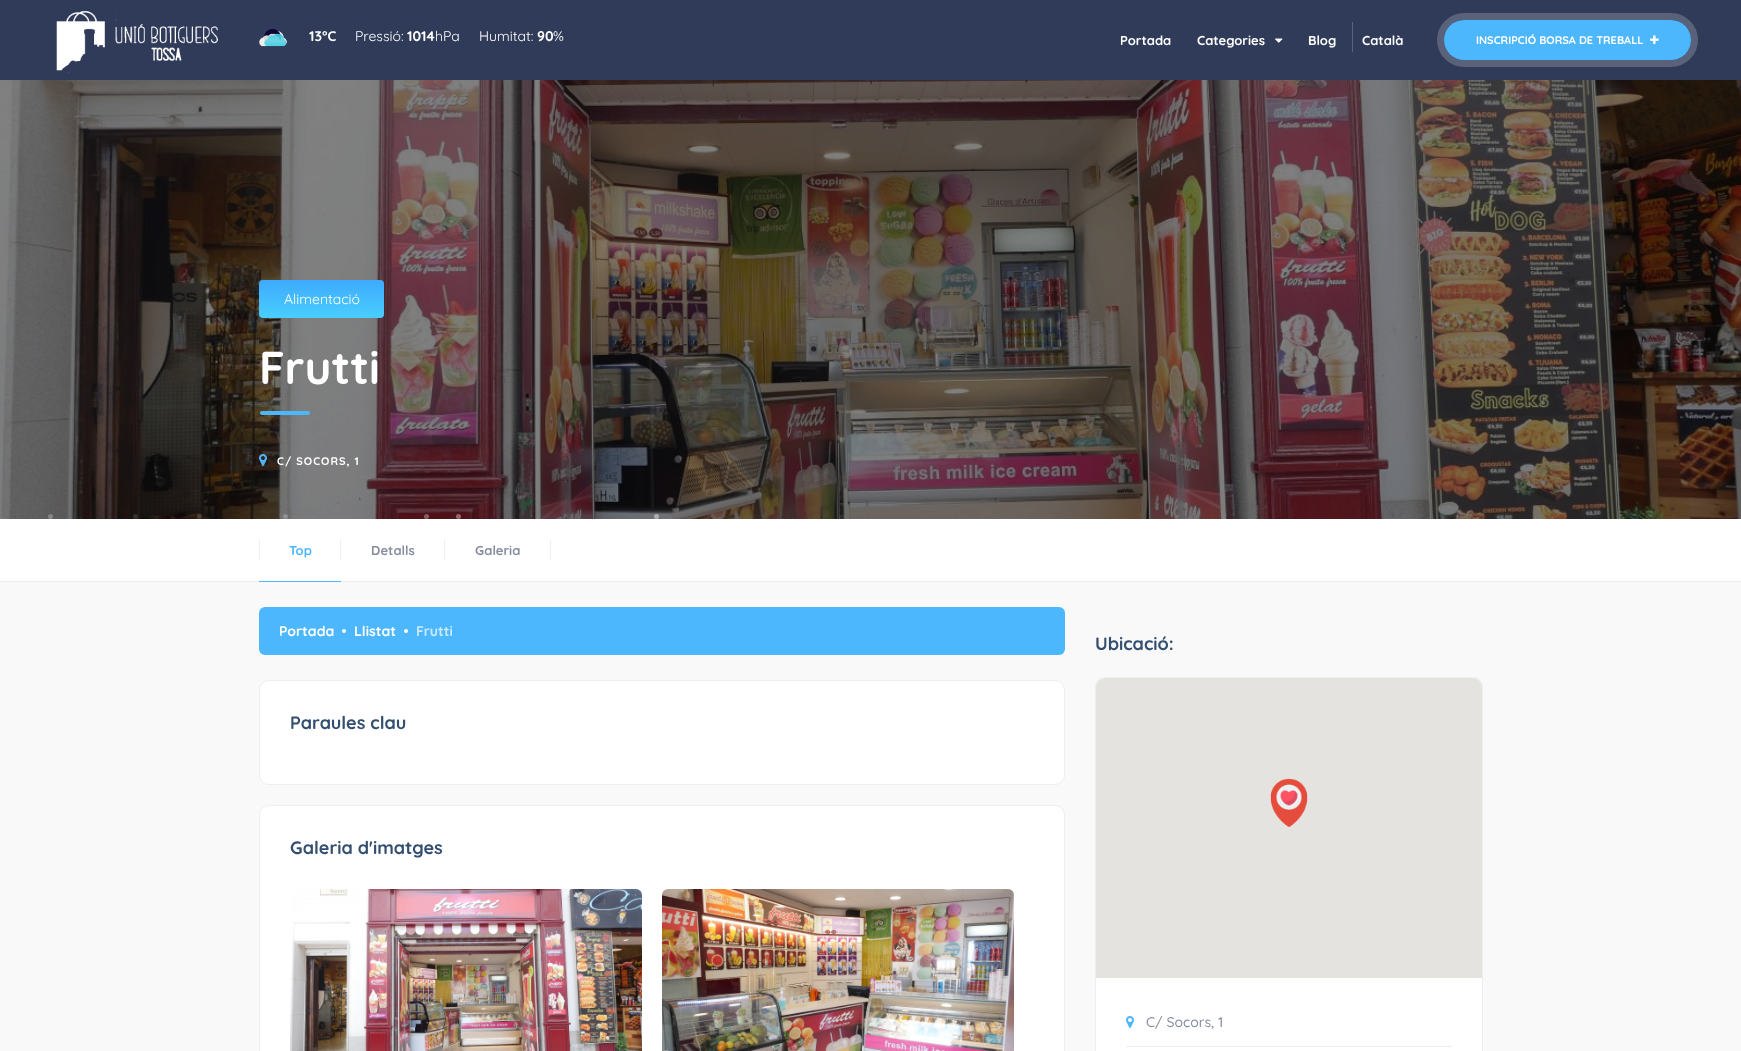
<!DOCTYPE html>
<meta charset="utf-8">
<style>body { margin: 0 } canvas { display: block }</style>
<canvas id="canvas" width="1741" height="1051"></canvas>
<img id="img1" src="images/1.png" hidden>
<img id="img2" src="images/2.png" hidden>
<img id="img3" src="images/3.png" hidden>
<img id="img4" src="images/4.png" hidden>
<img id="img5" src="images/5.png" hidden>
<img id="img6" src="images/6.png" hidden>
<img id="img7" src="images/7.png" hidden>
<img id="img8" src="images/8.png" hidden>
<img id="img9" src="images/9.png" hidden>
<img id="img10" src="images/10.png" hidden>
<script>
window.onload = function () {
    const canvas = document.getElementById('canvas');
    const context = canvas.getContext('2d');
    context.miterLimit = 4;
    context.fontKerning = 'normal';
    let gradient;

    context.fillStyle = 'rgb(47, 59, 89)';
    context.fillRect(0, 0, 1741, 1051);
    context.drawImage(document.getElementById('img1'), 56, 11, 162, 63);
    context.drawImage(document.getElementById('img2'), 259, 29, 28, 18);
    context.drawImage(document.getElementById('img3'), 1275, 38, 8, 5);
    context.fillStyle = 'rgb(91, 100, 124)';
    context.fillRect(1352, 22, 1, 30);
    context.beginPath();
    context.roundRect(1440.5, 16.5, 254, 47, 23.5);
    context.strokeStyle = 'rgb(89, 98, 122)';
    context.lineWidth = 7;
    context.stroke();
    context.fillStyle = 'rgb(77, 183, 254)';
    context.beginPath();
    context.roundRect(1444, 20, 247, 40, 20);
    context.fill();
    context.drawImage(document.getElementById('img4'), 1650, 35, 9, 9);
    context.fillStyle = 'rgb(255, 255, 255)';
    context.fillRect(0, 519, 1741, 62);
    context.drawImage(document.getElementById('img5'), 0, 80, 1741, 439);
    gradient = context.createLinearGradient(322, 280, 322, 318);
    gradient.addColorStop(0, 'rgb(62, 170, 253)');
    gradient.addColorStop(1, 'rgb(73, 206, 255)');
    context.fillStyle = gradient;
    context.beginPath();
    context.roundRect(259, 280, 125, 38, 4);
    context.fill();
    context.fillStyle = 'rgb(77, 183, 254)';
    context.beginPath();
    context.roundRect(260, 411, 50, 4, 2);
    context.fill();
    context.drawImage(document.getElementById('img6'), 259, 454, 8, 12);
    context.fillStyle = 'rgba(255, 255, 255, 0.26)';
    context.beginPath();
    context.arc(50.5, 516.5, 2.5, 0, 2 * Math.PI);
    context.fill();
    context.fillStyle = 'rgba(255, 255, 255, 0.13)';
    context.beginPath();
    context.arc(135.5, 516.5, 2.5, 0, 2 * Math.PI);
    context.fill();
    context.fillStyle = 'rgba(255, 255, 255, 0.17)';
    context.beginPath();
    context.arc(199.5, 516.5, 2.5, 0, 2 * Math.PI);
    context.fill();
    context.fillStyle = 'rgba(255, 255, 255, 0.22)';
    context.beginPath();
    context.arc(285.5, 516.5, 2.5, 0, 2 * Math.PI);
    context.fill();
    context.fillStyle = 'rgb(135, 92, 97)';
    context.beginPath();
    context.arc(426.5, 516.5, 2.5, 0, 2 * Math.PI);
    context.fill();
    context.fillStyle = 'rgba(255, 255, 255, 0.37)';
    context.beginPath();
    context.arc(458.5, 516.5, 2.5, 0, 2 * Math.PI);
    context.fill();
    context.fillStyle = 'rgba(255, 255, 255, 0.44)';
    context.beginPath();
    context.arc(656.5, 516.5, 2.5, 0, 2 * Math.PI);
    context.fill();
    context.fillStyle = 'rgb(238, 238, 238)';
    context.fillRect(0, 581, 1741, 1);
    context.fillRect(259, 540, 1, 20);
    context.fillStyle = 'rgb(77, 183, 254)';
    context.fillRect(259, 581, 82, 1);
    context.fillStyle = 'rgb(238, 238, 238)';
    context.fillRect(340, 540, 1, 20);
    context.fillRect(444, 540, 1, 20);
    context.fillRect(550, 540, 1, 20);
    context.fillStyle = 'rgb(249, 249, 249)';
    context.fillRect(0, 582, 1741, 469);
    context.fillStyle = 'rgb(77, 183, 254)';
    context.beginPath();
    context.roundRect(259, 607, 806, 48, 6);
    context.fill();
    context.fillStyle = 'rgb(255, 255, 255)';
    context.beginPath();
    context.arc(344, 631, 2, 0, 2 * Math.PI);
    context.fill();
    context.beginPath();
    context.arc(406, 631, 2, 0, 2 * Math.PI);
    context.fill();
    context.beginPath();
    context.roundRect(259.5, 680.5, 805, 104, 9.5);
    context.fill();
    context.strokeStyle = 'rgb(238, 238, 238)';
    context.lineWidth = 1;
    context.stroke();
    context.beginPath();
    context.roundRect(259.5, 805.5, 805, 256, 9.5);
    context.fill();
    context.stroke();
    context.drawImage(document.getElementById('img7'), 290, 889, 352, 162);
    context.drawImage(document.getElementById('img8'), 662, 889, 352, 162);
    context.beginPath();
    context.roundRect(1095.5, 677.5, 387, 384, 9.5);
    context.fill();
    context.stroke();
    context.fillStyle = 'rgb(229, 227, 223)';
    context.beginPath();
    context.roundRect(1096, 678, 386, 300, [9, 9, 0, 0]);
    context.fill();
    context.drawImage(document.getElementById('img9'), 1270, 778, 38, 49);
    context.fillStyle = 'rgb(238, 238, 238)';
    context.fillRect(1126, 1046, 326, 1);
    context.drawImage(document.getElementById('img10'), 1126, 1016, 8, 12);
    context.font = 'bold 14px Quicksand';
    context.fillStyle = 'rgb(255, 255, 255)';
    context.fillText('13°C', 309, 41);
    context.font = '14px Quicksand';
    context.fillText('Pressió:', 355, 41);
    context.font = 'bold 14px Quicksand';
    context.fillText('1014', 407, 41);
    context.font = '14px Quicksand';
    context.fillText('hPa', 435, 41);
    context.fillText('Humitat:', 479, 41);
    context.font = 'bold 14px Quicksand';
    context.fillText('90', 537, 41);
    context.font = '14px Quicksand';
    context.fillText('%', 553, 41);
    context.font = 'bold 13px Quicksand';
    context.fillText('Portada', 1120, 45);
    context.fillText('Categories', 1197, 45);
    context.fillText('Blog', 1308, 45);
    context.fillText('Català', 1362, 45);
    context.font = 'bold 11px Quicksand';
    context.fillText('INSCRIPCIÓ BORSA DE TREBALL', 1476, 44);
    context.font = '14px Quicksand';
    context.fillText('Alimentació', 284, 304);
    context.font = 'bold 46px Quicksand';
    context.fillText('Frutti', 259, 384);
    context.letterSpacing = '1px';
    context.font = 'bold 11px Quicksand';
    context.fillText('C/ SOCORS, 1', 277, 465);
    context.letterSpacing = '0px';
    context.font = 'bold 13px Quicksand';
    context.fillStyle = 'rgb(77, 183, 254)';
    context.fillText('Top', 289, 555);
    context.fillStyle = 'rgb(135, 140, 159)';
    context.fillText('Detalls', 371, 555);
    context.fillText('Galeria', 475, 555);
    context.font = 'bold 14px Quicksand';
    context.fillStyle = 'rgb(255, 255, 255)';
    context.fillText('Portada', 279, 636);
    context.fillText('Llistat', 354, 636);
    context.fillStyle = 'rgb(203, 234, 255)';
    context.fillText('Frutti', 416, 636);
    context.font = 'bold 18px Quicksand';
    context.fillStyle = 'rgb(51, 78, 111)';
    context.fillText('Paraules clau', 290, 729);
    context.fillText('Galeria d\'imatges', 290, 854);
    context.fillText('Ubicació:', 1095, 650);
    context.font = '500 14px Quicksand';
    context.fillStyle = 'rgb(135, 140, 159)';
    context.fillText('C/ Socors, 1', 1146, 1027);
};
</script>
